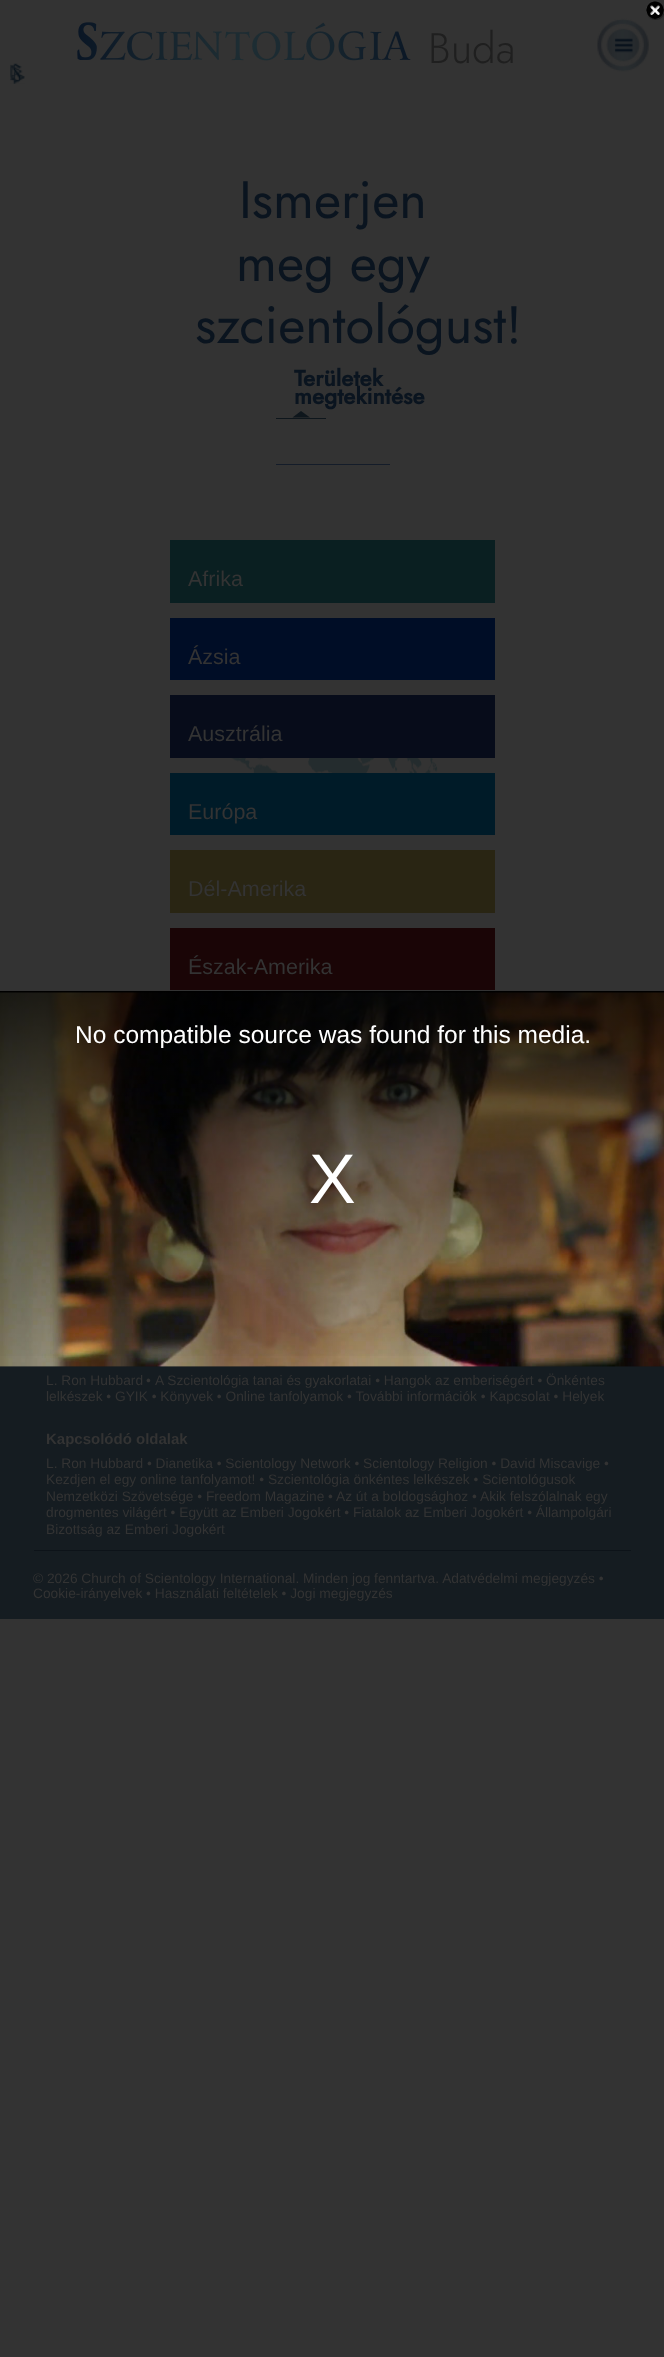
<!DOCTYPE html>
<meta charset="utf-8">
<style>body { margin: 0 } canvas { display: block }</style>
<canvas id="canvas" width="664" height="2357"></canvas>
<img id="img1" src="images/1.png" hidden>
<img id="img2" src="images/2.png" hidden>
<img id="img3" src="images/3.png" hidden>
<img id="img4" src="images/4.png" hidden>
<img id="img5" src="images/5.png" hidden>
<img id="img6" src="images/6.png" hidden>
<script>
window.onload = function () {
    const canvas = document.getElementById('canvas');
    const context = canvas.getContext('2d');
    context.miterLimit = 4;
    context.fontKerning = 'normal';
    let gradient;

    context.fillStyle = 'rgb(51, 51, 51)';
    context.fillRect(0, 0, 664, 2357);
    context.drawImage(document.getElementById('img1'), 77, 22, 334, 39);
    context.drawImage(document.getElementById('img2'), 597, 18, 52, 54);
    context.drawImage(document.getElementById('img3'), 10, 63, 15, 21);
    context.fillStyle = 'rgb(20, 28, 41)';
    context.fillRect(276, 464, 114, 1);
    context.fillStyle = 'rgb(14, 22, 28)';
    context.fillRect(276, 418, 50, 1);
    context.beginPath();
    context.moveTo(310, 417.5);
    context.lineTo(292.5, 417.5);
    context.lineTo(301, 411);
    context.closePath();
    context.fill();
    context.fillStyle = 'rgb(10, 31, 33)';
    context.fillRect(170, 540, 325, 63);
    context.fillStyle = 'rgb(0, 13, 38)';
    context.fillRect(170, 618, 325, 62);
    context.fillStyle = 'rgb(7, 12, 26)';
    context.fillRect(170, 695, 325, 63);
    context.fillStyle = 'rgb(0, 27, 40)';
    context.fillRect(170, 773, 325, 62);
    context.fillStyle = 'rgb(41, 37, 19)';
    context.fillRect(170, 850, 325, 63);
    context.fillStyle = 'rgb(26, 5, 6)';
    context.fillRect(170, 928, 325, 62);
    context.drawImage(document.getElementById('img4'), 231, 758, 207, 15);
    context.drawImage(document.getElementById('img5'), 646, 1, 18, 19);
    context.fillStyle = 'rgb(0, 0, 0)';
    context.fillRect(0, 991, 664, 2);
    context.fillStyle = 'rgb(21, 28, 33)';
    context.fillRect(0, 1366, 664, 253);
    context.drawImage(document.getElementById('img6'), 0, 992, 664, 375);
    gradient = context.createLinearGradient(333, 991, 333, 1366);
    gradient.addColorStop(0, 'rgba(0, 0, 0, 0.8)');
    gradient.addColorStop(1, 'rgba(0, 0, 0, 0)');
    context.fillStyle = gradient;
    context.fillRect(0, 992, 664, 364);
    context.fillStyle = 'rgb(13, 19, 25)';
    context.fillRect(34, 1550, 597, 1);
    context.font = '300 42.5px Jost';
    context.fillStyle = 'rgb(31, 31, 31)';
    context.fillText('Buda', 428, 63);
    context.font = '52.5px Jost';
    context.fillStyle = 'rgb(10, 20, 31)';
    context.fillText('Ismerjen', 239, 218);
    context.fillText('meg egy', 236, 281);
    context.fillText('szcientológust!', 195, 343);
    context.font = 'bold 22.5px Jost';
    context.fillText('Területek', 294, 386);
    context.fillText('megtekintése', 294, 404);
    context.font = '21.5px Liberation Sans';
    context.fillStyle = 'rgb(51, 51, 51)';
    context.fillText('Afrika', 188, 586);
    context.fillText('Ázsia', 188, 664);
    context.fillText('Ausztrália', 188, 741);
    context.fillText('Európa', 188, 819);
    context.fillText('Dél-Amerika', 188, 896);
    context.fillText('Észak-Amerika', 188, 974);
    context.font = '24.5px Liberation Sans';
    context.fillStyle = 'rgb(255, 255, 255)';
    context.fillText('No compatible source was found for this media.', 75, 1043);
    context.font = '70px Liberation Sans';
    context.fillText('X', 309, 1203);
    context.font = '13.75px Liberation Sans';
    context.fillStyle = 'rgb(51, 51, 51)';
    context.fillText('L. Ron Hubbard', 46, 1385);
    context.fillText('•', 146, 1385);
    context.fillText('A Szcientológia tanai és gyakorlatai • Hangok az emberiségért • Önkéntes', 155, 1385);
    context.fillText('lelkészek • GYIK • Könyvek • Online tanfolyamok • További információk • Kapcsolat • Helyek', 46, 1401);
    context.font = 'bold 15px Liberation Sans';
    context.fillText('Kapcsolódó oldalak', 46, 1444);
    context.font = '13.75px Liberation Sans';
    context.fillText('L. Ron Hubbard • Dianetika • Scientology Network • Scientology Religion • David Miscavige •', 46, 1468);
    context.fillText('Kezdjen el egy online tanfolyamot! • Szcientológia önkéntes lelkészek • Scientológusok', 46, 1484);
    context.fillText('Nemzetközi Szövetsége • Freedom Magazine', 46, 1501);
    context.fillText('•', 328, 1501);
    context.fillText('Az út a boldogsághoz', 336, 1501);
    context.fillText('•', 472, 1501);
    context.fillText('Akik felszólalnak egy', 480, 1501);
    context.fillText('drogmentes világért • Együtt az Emberi Jogokért • Fiatalok az Emberi Jogokért • Állampolgári', 46, 1517);
    context.fillText('Bizottság az Emberi Jogokért', 46, 1534);
    context.fillText('© 2026 Church of Scientology International. Minden jog fenntartva. Adatvédelmi megjegyzés •', 33, 1583);
    context.fillText('Cookie-irányelvek • Használati feltételek • Jogi megjegyzés', 33, 1598);
};
</script>
